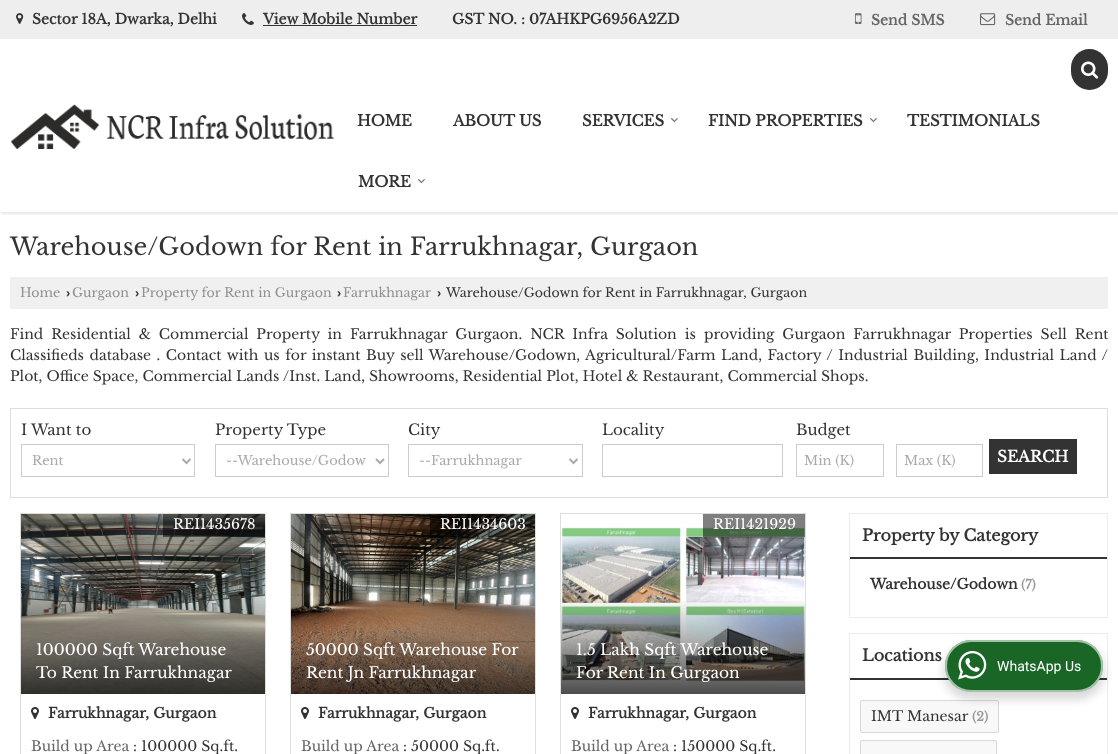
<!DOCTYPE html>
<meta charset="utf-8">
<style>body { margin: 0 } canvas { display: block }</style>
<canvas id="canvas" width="1118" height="754"></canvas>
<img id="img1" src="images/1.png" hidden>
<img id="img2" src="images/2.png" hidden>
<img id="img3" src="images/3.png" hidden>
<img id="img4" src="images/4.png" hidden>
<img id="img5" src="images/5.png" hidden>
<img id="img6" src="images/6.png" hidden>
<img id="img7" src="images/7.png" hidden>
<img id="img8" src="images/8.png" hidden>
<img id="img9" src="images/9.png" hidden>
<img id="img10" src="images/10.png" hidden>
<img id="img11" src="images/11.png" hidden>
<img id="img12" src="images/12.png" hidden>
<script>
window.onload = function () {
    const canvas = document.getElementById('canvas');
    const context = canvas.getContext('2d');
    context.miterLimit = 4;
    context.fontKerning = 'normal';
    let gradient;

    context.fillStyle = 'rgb(255, 255, 255)';
    context.fillRect(0, 0, 1118, 754);
    context.fillStyle = 'rgb(238, 238, 238)';
    context.fillRect(0, 0, 1118, 39);
    context.drawImage(document.getElementById('img1'), 16, 13, 8, 11);
    context.drawImage(document.getElementById('img2'), 242, 13, 12, 12);
    context.fillStyle = 'rgb(51, 51, 51)';
    context.fillRect(263, 25, 154, 1);
    context.drawImage(document.getElementById('img3'), 855, 13, 7, 11);
    context.drawImage(document.getElementById('img4'), 980, 13, 16, 13);
    context.save();
    context.beginPath();
    context.rect(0, 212, 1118, 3);
    context.clip();
    context.fillStyle = 'rgba(0, 0, 0, 0.1)';
    context.filter = 'blur(1.5px)';
    context.beginPath();
    context.rect(1, 41, 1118, 173);
    context.fill();
    context.filter = 'none';
    context.restore();
    context.drawImage(document.getElementById('img5'), 11, 104, 324, 45);
    context.beginPath();
    context.roundRect(1071, 49, 37, 41, 18.5);
    context.fill();
    context.drawImage(document.getElementById('img6'), 1081, 61, 18, 18);
    context.drawImage(document.getElementById('img7'), 671, 118, 7, 5);
    context.drawImage(document.getElementById('img7'), 870, 118, 7, 5);
    context.drawImage(document.getElementById('img7'), 418, 179, 7, 5);
    context.fillStyle = 'rgb(240, 240, 240)';
    context.fillRect(10, 277, 1098, 32);
    context.strokeStyle = 'rgb(222, 222, 222)';
    context.strokeRect(10.5, 408.5, 1097, 89);
    context.strokeStyle = 'rgb(204, 204, 204)';
    context.strokeRect(21.5, 444.5, 173, 32);
    context.beginPath();
    context.moveTo(182.5, 459);
    context.lineTo(186.5, 463);
    context.lineTo(190.5, 459);
    context.strokeStyle = 'rgb(170, 170, 170)';
    context.lineWidth = 2;
    context.stroke();
    context.strokeStyle = 'rgb(204, 204, 204)';
    context.lineWidth = 1;
    context.strokeRect(215.5, 444.5, 173, 32);
    context.beginPath();
    context.moveTo(376, 459);
    context.lineTo(380, 463);
    context.lineTo(384, 459);
    context.strokeStyle = 'rgb(170, 170, 170)';
    context.lineWidth = 2;
    context.stroke();
    context.strokeStyle = 'rgb(204, 204, 204)';
    context.lineWidth = 1;
    context.strokeRect(408.5, 444.5, 174, 32);
    context.beginPath();
    context.moveTo(569.5, 459);
    context.lineTo(573.5, 463);
    context.lineTo(577.5, 459);
    context.strokeStyle = 'rgb(170, 170, 170)';
    context.lineWidth = 2;
    context.stroke();
    context.strokeStyle = 'rgb(204, 204, 204)';
    context.lineWidth = 1;
    context.strokeRect(602.5, 444.5, 180, 32);
    context.strokeRect(796.5, 444.5, 87, 32);
    context.strokeRect(896.5, 444.5, 86, 32);
    context.fillStyle = 'rgb(51, 51, 51)';
    context.fillRect(989, 439, 88, 35);
    context.strokeStyle = 'rgb(222, 222, 222)';
    context.strokeRect(20.5, 513.5, 245, 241);
    context.drawImage(document.getElementById('img8'), 21, 514, 244, 180);
    context.fillStyle = 'rgba(0, 0, 0, 0.5)';
    context.fillRect(163, 514, 102, 23);
    context.drawImage(document.getElementById('img9'), 31, 707, 8, 12);
    context.strokeRect(290.5, 513.5, 245, 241);
    context.drawImage(document.getElementById('img10'), 291, 514, 244, 180);
    context.fillRect(430, 514, 105, 23);
    context.drawImage(document.getElementById('img9'), 301, 707, 8, 12);
    context.strokeRect(560.5, 513.5, 245, 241);
    context.drawImage(document.getElementById('img11'), 561, 526, 244, 156);
    context.fillRect(703, 514, 102, 23);
    gradient = context.createLinearGradient(683, 598, 683, 694);
    gradient.addColorStop(0, 'rgba(0, 0, 0, 0)');
    gradient.addColorStop(1, 'rgba(0, 0, 0, 0.7)');
    context.fillStyle = gradient;
    context.fillRect(561, 601, 244, 93);
    context.drawImage(document.getElementById('img9'), 571, 707, 8, 12);
    context.strokeStyle = 'rgb(237, 237, 237)';
    context.strokeRect(849.5, 513.5, 258, 104);
    context.fillStyle = 'rgb(51, 51, 51)';
    context.fillRect(850, 557, 257, 2);
    context.strokeRect(849.5, 633.5, 258, 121);
    context.fillRect(850, 678, 257, 2);
    context.fillStyle = 'rgb(248, 248, 248)';
    context.beginPath();
    context.roundRect(860.5, 700.5, 138, 32, 1.5);
    context.fill();
    context.strokeStyle = 'rgb(216, 216, 216)';
    context.stroke();
    context.beginPath();
    context.roundRect(860.5, 740.5, 136, 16, 1.5);
    context.fill();
    context.stroke();
    context.fillStyle = 'rgba(0, 0, 0, 0.14)';
    context.filter = 'blur(4px)';
    context.beginPath();
    context.roundRect(943, 644, 162, 56, 28);
    context.fill();
    context.filter = 'none';
    context.fillStyle = 'rgb(25, 102, 38)';
    context.beginPath();
    context.roundRect(945, 640, 158, 52, 26);
    context.fill();
    context.beginPath();
    context.roundRect(946, 641, 156, 50, 25);
    context.strokeStyle = 'rgba(255, 255, 255, 0.6)';
    context.lineWidth = 2;
    context.stroke();
    context.drawImage(document.getElementById('img12'), 958, 651, 29, 29);
    context.font = 'bold 14px Libre Baskerville';
    context.fillStyle = 'rgb(51, 51, 51)';
    context.fillText('Sector 18A, Dwarka, Delhi', 32, 24);
    context.fillText('View Mobile Number', 263, 24);
    context.fillText('GST NO. : 07AHKPG6956A2ZD', 452, 24);
    context.fillStyle = 'rgb(102, 102, 102)';
    context.fillText('Send SMS', 871, 25);
    context.fillText('Send Email', 1005, 25);
    context.font = 'bold 15px Libre Baskerville';
    context.fillStyle = 'rgb(51, 51, 51)';
    context.fillText('HOME', 357, 126);
    context.fillText('ABOUT US', 453, 126);
    context.fillText('SERVICES', 582, 126);
    context.fillText('FIND PROPERTIES', 708, 126);
    context.fillText('TESTIMONIALS', 907, 126);
    context.fillText('MORE', 358, 187);
    context.font = '24px Libre Baskerville';
    context.fillText('Warehouse/Godown for Rent in Farrukhnagar, Gurgaon', 10, 255);
    context.font = '12.6px Libre Baskerville';
    context.fillStyle = 'rgb(144, 144, 144)';
    context.fillText('Home', 20, 297);
    context.font = 'bold 12.6px Liberation Sans';
    context.fillStyle = 'rgb(51, 51, 51)';
    context.fillText('›', 66, 297);
    context.font = '12.6px Libre Baskerville';
    context.fillStyle = 'rgb(144, 144, 144)';
    context.fillText('Gurgaon', 72, 297);
    context.font = 'bold 12.6px Liberation Sans';
    context.fillStyle = 'rgb(51, 51, 51)';
    context.fillText('›', 135, 297);
    context.font = '12.6px Libre Baskerville';
    context.fillStyle = 'rgb(144, 144, 144)';
    context.fillText('Property for Rent in Gurgaon', 141, 297);
    context.font = 'bold 12.6px Liberation Sans';
    context.fillStyle = 'rgb(51, 51, 51)';
    context.fillText('›', 337, 297);
    context.font = '12.6px Libre Baskerville';
    context.fillStyle = 'rgb(144, 144, 144)';
    context.fillText('Farrukhnagar', 343, 297);
    context.font = 'bold 12.6px Liberation Sans';
    context.fillStyle = 'rgb(51, 51, 51)';
    context.fillText('›', 437, 297);
    context.font = '12.6px Libre Baskerville';
    context.fillText('Warehouse/Godown for Rent in Farrukhnagar, Gurgaon', 446, 297);
    context.wordSpacing = '3.9px';
    context.font = '14px Libre Baskerville';
    context.fillText('Find Residential & Commercial Property in Farrukhnagar Gurgaon. NCR Infra Solution is', 10, 339);
    context.fillText('providing Gurgaon Farrukhnagar Properties Sell Rent', 704, 339);
    context.wordSpacing = '1.5px';
    context.fillText('Classifieds database . Contact with us for instant Buy sell Warehouse/Godown, Agricultural/Farm Land, Factory / Industrial Building, Industrial Land /', 10, 360);
    context.wordSpacing = '0px';
    context.fillText('Plot, Office Space, Commercial Lands /Inst. Land, Showrooms, Residential Plot, Hotel & Restaurant, Commercial Shops.', 10, 381);
    context.font = '15px Libre Baskerville';
    context.fillText('I Want to', 21, 435);
    context.font = '13px Libre Baskerville';
    context.fillStyle = 'rgb(170, 170, 170)';
    context.fillText('Rent', 32, 465);
    context.font = '15px Libre Baskerville';
    context.fillStyle = 'rgb(51, 51, 51)';
    context.fillText('Property Type', 215, 435);
    context.font = '13px Libre Baskerville';
    context.fillStyle = 'rgb(170, 170, 170)';
    context.fillText('--Warehouse/Godow', 226, 465);
    context.font = '15px Libre Baskerville';
    context.fillStyle = 'rgb(51, 51, 51)';
    context.fillText('City', 408, 435);
    context.font = '13px Libre Baskerville';
    context.fillStyle = 'rgb(170, 170, 170)';
    context.fillText('--Farrukhnagar', 419, 465);
    context.font = '15px Libre Baskerville';
    context.fillStyle = 'rgb(51, 51, 51)';
    context.fillText('Locality', 602, 435);
    context.fillText('Budget', 796, 435);
    context.font = '13px Libre Baskerville';
    context.fillStyle = 'rgb(170, 170, 170)';
    context.fillText('Min (K)', 804, 465);
    context.fillText('Max (K)', 904, 465);
    context.font = 'bold 15.4px Libre Baskerville';
    context.fillStyle = 'rgb(255, 255, 255)';
    context.fillText('SEARCH', 997, 462);
    context.font = '14px Libre Baskerville';
    context.fillText('REI1435678', 173, 529);
    context.font = '15.4px Libre Baskerville';
    context.fillText('100000 Sqft Warehouse', 36, 655);
    context.fillText('To Rent In Farrukhnagar', 36, 678);
    context.font = 'bold 14px Libre Baskerville';
    context.fillStyle = 'rgb(51, 51, 51)';
    context.fillText('Farrukhnagar, Gurgaon', 48, 718);
    context.font = '14px Libre Baskerville';
    context.fillStyle = 'rgb(102, 102, 102)';
    context.fillText('Build up Area', 31, 751);
    context.fillStyle = 'rgb(51, 51, 51)';
    context.fillText(': 100000 Sq.ft.', 133, 751);
    context.fillStyle = 'rgb(255, 255, 255)';
    context.fillText('REI1434603', 440, 529);
    context.font = '15.4px Libre Baskerville';
    context.fillText('50000 Sqft Warehouse For', 306, 655);
    context.fillText('Rent Jn Farrukhnagar', 306, 678);
    context.font = 'bold 14px Libre Baskerville';
    context.fillStyle = 'rgb(51, 51, 51)';
    context.fillText('Farrukhnagar, Gurgaon', 318, 718);
    context.font = '14px Libre Baskerville';
    context.fillStyle = 'rgb(102, 102, 102)';
    context.fillText('Build up Area', 301, 751);
    context.fillStyle = 'rgb(51, 51, 51)';
    context.fillText(': 50000 Sq.ft.', 403, 751);
    context.fillStyle = 'rgb(255, 255, 255)';
    context.fillText('REI1421929', 713, 529);
    context.font = '15.4px Libre Baskerville';
    context.fillText('1.5 Lakh Sqft Warehouse', 576, 655);
    context.fillText('For Rent In Gurgaon', 576, 678);
    context.font = 'bold 14px Libre Baskerville';
    context.fillStyle = 'rgb(51, 51, 51)';
    context.fillText('Farrukhnagar, Gurgaon', 588, 718);
    context.font = '14px Libre Baskerville';
    context.fillStyle = 'rgb(102, 102, 102)';
    context.fillText('Build up Area', 571, 751);
    context.fillStyle = 'rgb(51, 51, 51)';
    context.fillText(': 150000 Sq.ft.', 673, 751);
    context.font = 'bold 16px Libre Baskerville';
    context.fillText('Property by Category', 862, 541);
    context.font = 'bold 14px Libre Baskerville';
    context.fillText('Warehouse/Godown', 870, 589);
    context.font = 'bold 12.6px Libre Baskerville';
    context.fillStyle = 'rgb(153, 153, 153)';
    context.fillText('(7)', 1021, 589);
    context.font = 'bold 16px Libre Baskerville';
    context.fillStyle = 'rgb(51, 51, 51)';
    context.fillText('Locations', 862, 661);
    context.font = '14px Libre Baskerville';
    context.fillText('IMT Manesar', 871, 721);
    context.font = 'bold 12.6px Libre Baskerville';
    context.fillStyle = 'rgb(153, 153, 153)';
    context.fillText('(2)', 972, 721);
    context.font = '14px Roboto';
    context.fillStyle = 'rgb(255, 255, 255)';
    context.fillText('WhatsApp Us', 997, 671);
};
</script>
